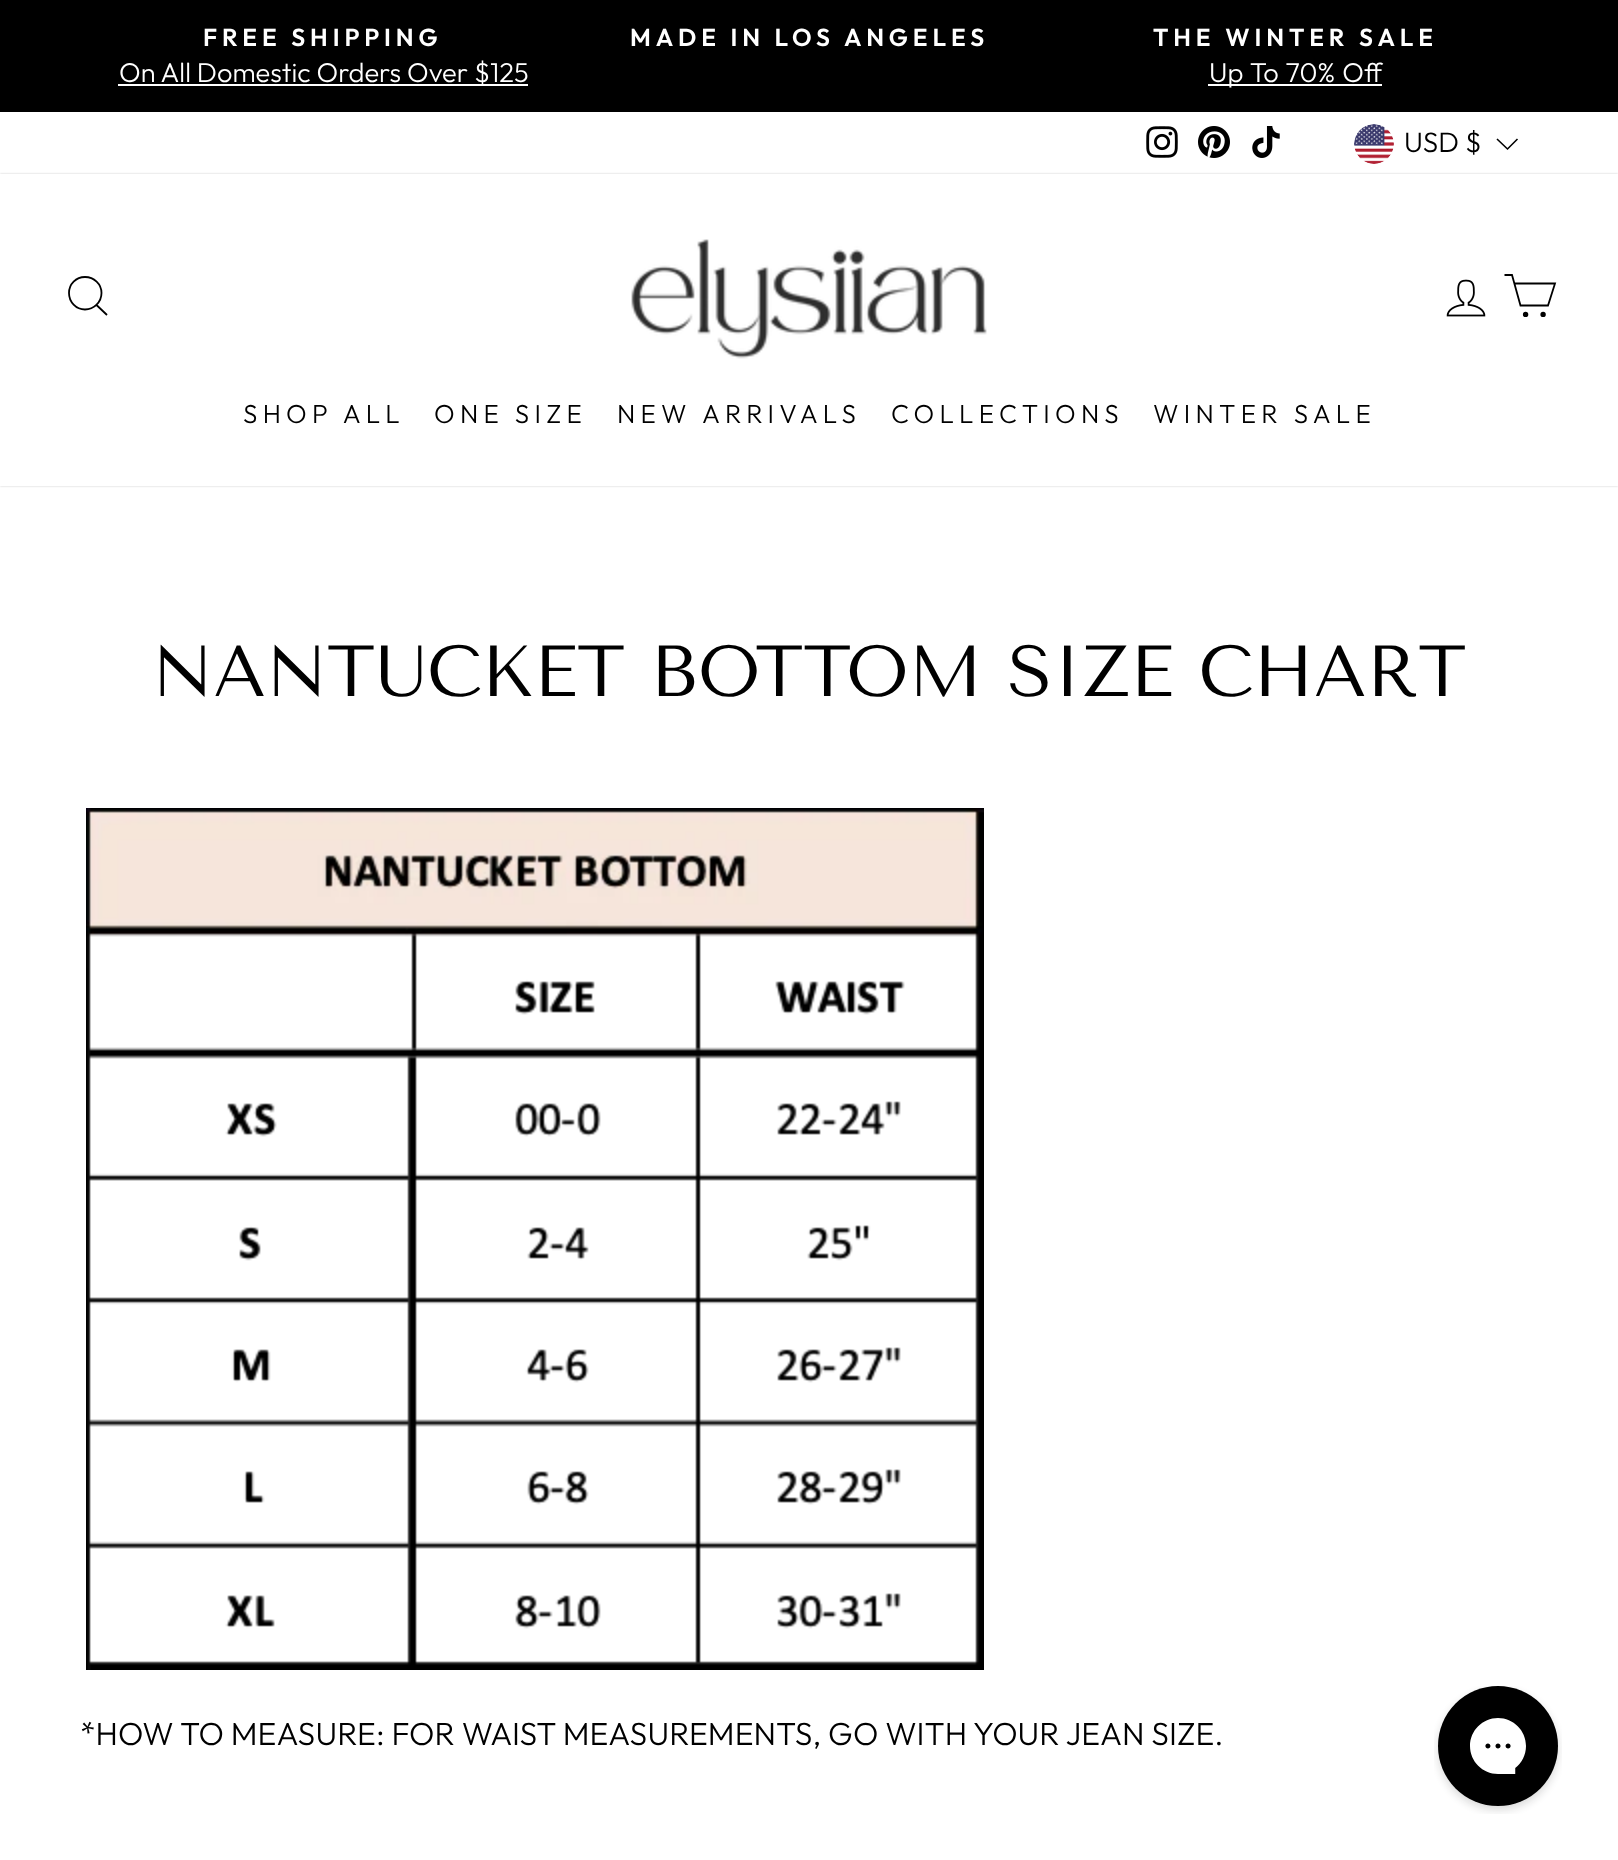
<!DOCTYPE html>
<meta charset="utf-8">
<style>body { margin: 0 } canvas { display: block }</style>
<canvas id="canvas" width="1618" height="1860"></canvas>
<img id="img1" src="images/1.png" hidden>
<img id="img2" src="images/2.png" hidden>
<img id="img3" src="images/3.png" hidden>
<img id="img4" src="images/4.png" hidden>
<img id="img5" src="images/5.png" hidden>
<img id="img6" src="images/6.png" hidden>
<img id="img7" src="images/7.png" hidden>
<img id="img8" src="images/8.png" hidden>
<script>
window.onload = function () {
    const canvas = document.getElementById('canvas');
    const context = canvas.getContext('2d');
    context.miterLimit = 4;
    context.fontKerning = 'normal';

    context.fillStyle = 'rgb(255, 255, 255)';
    context.fillRect(0, 0, 1618, 1860);
    context.fillStyle = 'rgb(0, 0, 0)';
    context.fillRect(0, 0, 1618, 112);
    context.fillStyle = 'rgb(255, 255, 255)';
    context.fillRect(118, 84, 410, 2);
    context.fillRect(1208, 84, 174, 2);
    context.drawImage(document.getElementById('img1'), 1146, 126, 32, 32);
    context.drawImage(document.getElementById('img2'), 1198, 126, 32, 32);
    context.drawImage(document.getElementById('img3'), 1252, 126, 28, 32);
    context.drawImage(document.getElementById('img4'), 1354, 124, 40, 40);
    context.beginPath();
    context.moveTo(1497, 139);
    context.lineTo(1507.5, 149);
    context.lineTo(1517.5, 139);
    context.strokeStyle = 'rgb(0, 0, 0)';
    context.lineWidth = 1.6;
    context.stroke();
    context.save();
    context.beginPath();
    context.moveTo(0, 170);
    context.lineTo(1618, 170);
    context.lineTo(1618, 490);
    context.lineTo(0, 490);
    context.closePath();
    context.moveTo(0, 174);
    context.lineTo(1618, 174);
    context.lineTo(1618, 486);
    context.lineTo(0, 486);
    context.closePath();
    context.clip('evenodd');
    context.fillStyle = 'rgba(0, 0, 0, 0.2)';
    context.filter = 'blur(1px)';
    context.beginPath();
    context.rect(0, 174, 1618, 312);
    context.fill();
    context.filter = 'none';
    context.restore();
    context.beginPath();
    context.moveTo(101.5, 293);
    context.bezierCurveTo(101.5, 302, 94, 309.5, 85, 309.5);
    context.bezierCurveTo(76, 309.5, 69, 302, 69, 293);
    context.bezierCurveTo(69, 284, 76, 277, 85, 277);
    context.bezierCurveTo(94, 277, 101.5, 284, 101.5, 293);
    context.closePath();
    context.moveTo(107, 315);
    context.lineTo(96.5, 305);
    context.lineWidth = 1.8;
    context.stroke();
    context.drawImage(document.getElementById('img5'), 631, 239, 356, 120);
    context.drawImage(document.getElementById('img6'), 1446, 279, 40, 38);
    context.beginPath();
    context.moveTo(1514, 283.5);
    context.lineTo(1555, 283.5);
    context.lineTo(1548, 305.5);
    context.lineTo(1520.5, 305.5);
    context.lineTo(1512, 275);
    context.lineTo(1504.5, 275);
    context.stroke();
    context.fillStyle = 'rgb(0, 0, 0)';
    context.beginPath();
    context.arc(1525.6, 314.4, 1.8, 0, 2 * Math.PI);
    context.fill();
    context.stroke();
    context.beginPath();
    context.arc(1543.1, 314.4, 1.8, 0, 2 * Math.PI);
    context.fill();
    context.stroke();
    context.drawImage(document.getElementById('img7'), 86, 808, 898, 862);
    context.drawImage(document.getElementById('img8'), 1434, 1686, 128, 128);
    context.letterSpacing = '4.9px';
    context.font = '600 24.5px Outfit';
    context.fillStyle = 'rgb(255, 255, 255)';
    context.fillText('FREE SHIPPING', 203, 46);
    context.letterSpacing = '0px';
    context.font = '300 27.25px Outfit';
    context.fillText('On All Domestic Orders Over $125', 119, 82);
    context.letterSpacing = '4.9px';
    context.font = '600 24.5px Outfit';
    context.fillText('MADE IN LOS ANGELES', 630, 46);
    context.fillText('THE WINTER SALE', 1153, 46);
    context.letterSpacing = '0px';
    context.wordSpacing = '1px';
    context.font = '300 27.25px Outfit';
    context.fillText('Up To 70% Off', 1209, 82);
    context.wordSpacing = '0px';
    context.font = '300 28px Outfit';
    context.fillStyle = 'rgb(0, 0, 0)';
    context.fillText('USD $', 1404, 152);
    context.letterSpacing = '5.25px';
    context.font = '300 26px Outfit';
    context.fillText('SHOP ALL', 243, 423);
    context.fillText('ONE SIZE', 434, 423);
    context.fillText('NEW ARRIVALS', 617, 423);
    context.fillText('COLLECTIONS', 891, 423);
    context.fillText('WINTER SALE', 1153, 423);
    context.letterSpacing = '0px';
    context.font = '72px Tenor Sans';
    context.fillText('NANTUCKET BOTTOM SIZE CHART', 152, 696);
    context.font = '300 32px Outfit';
    context.fillText('*HOW TO MEASURE: FOR WAIST MEASUREMENTS, GO WITH YOUR JEAN SIZE.', 80, 1745);
};
</script>
